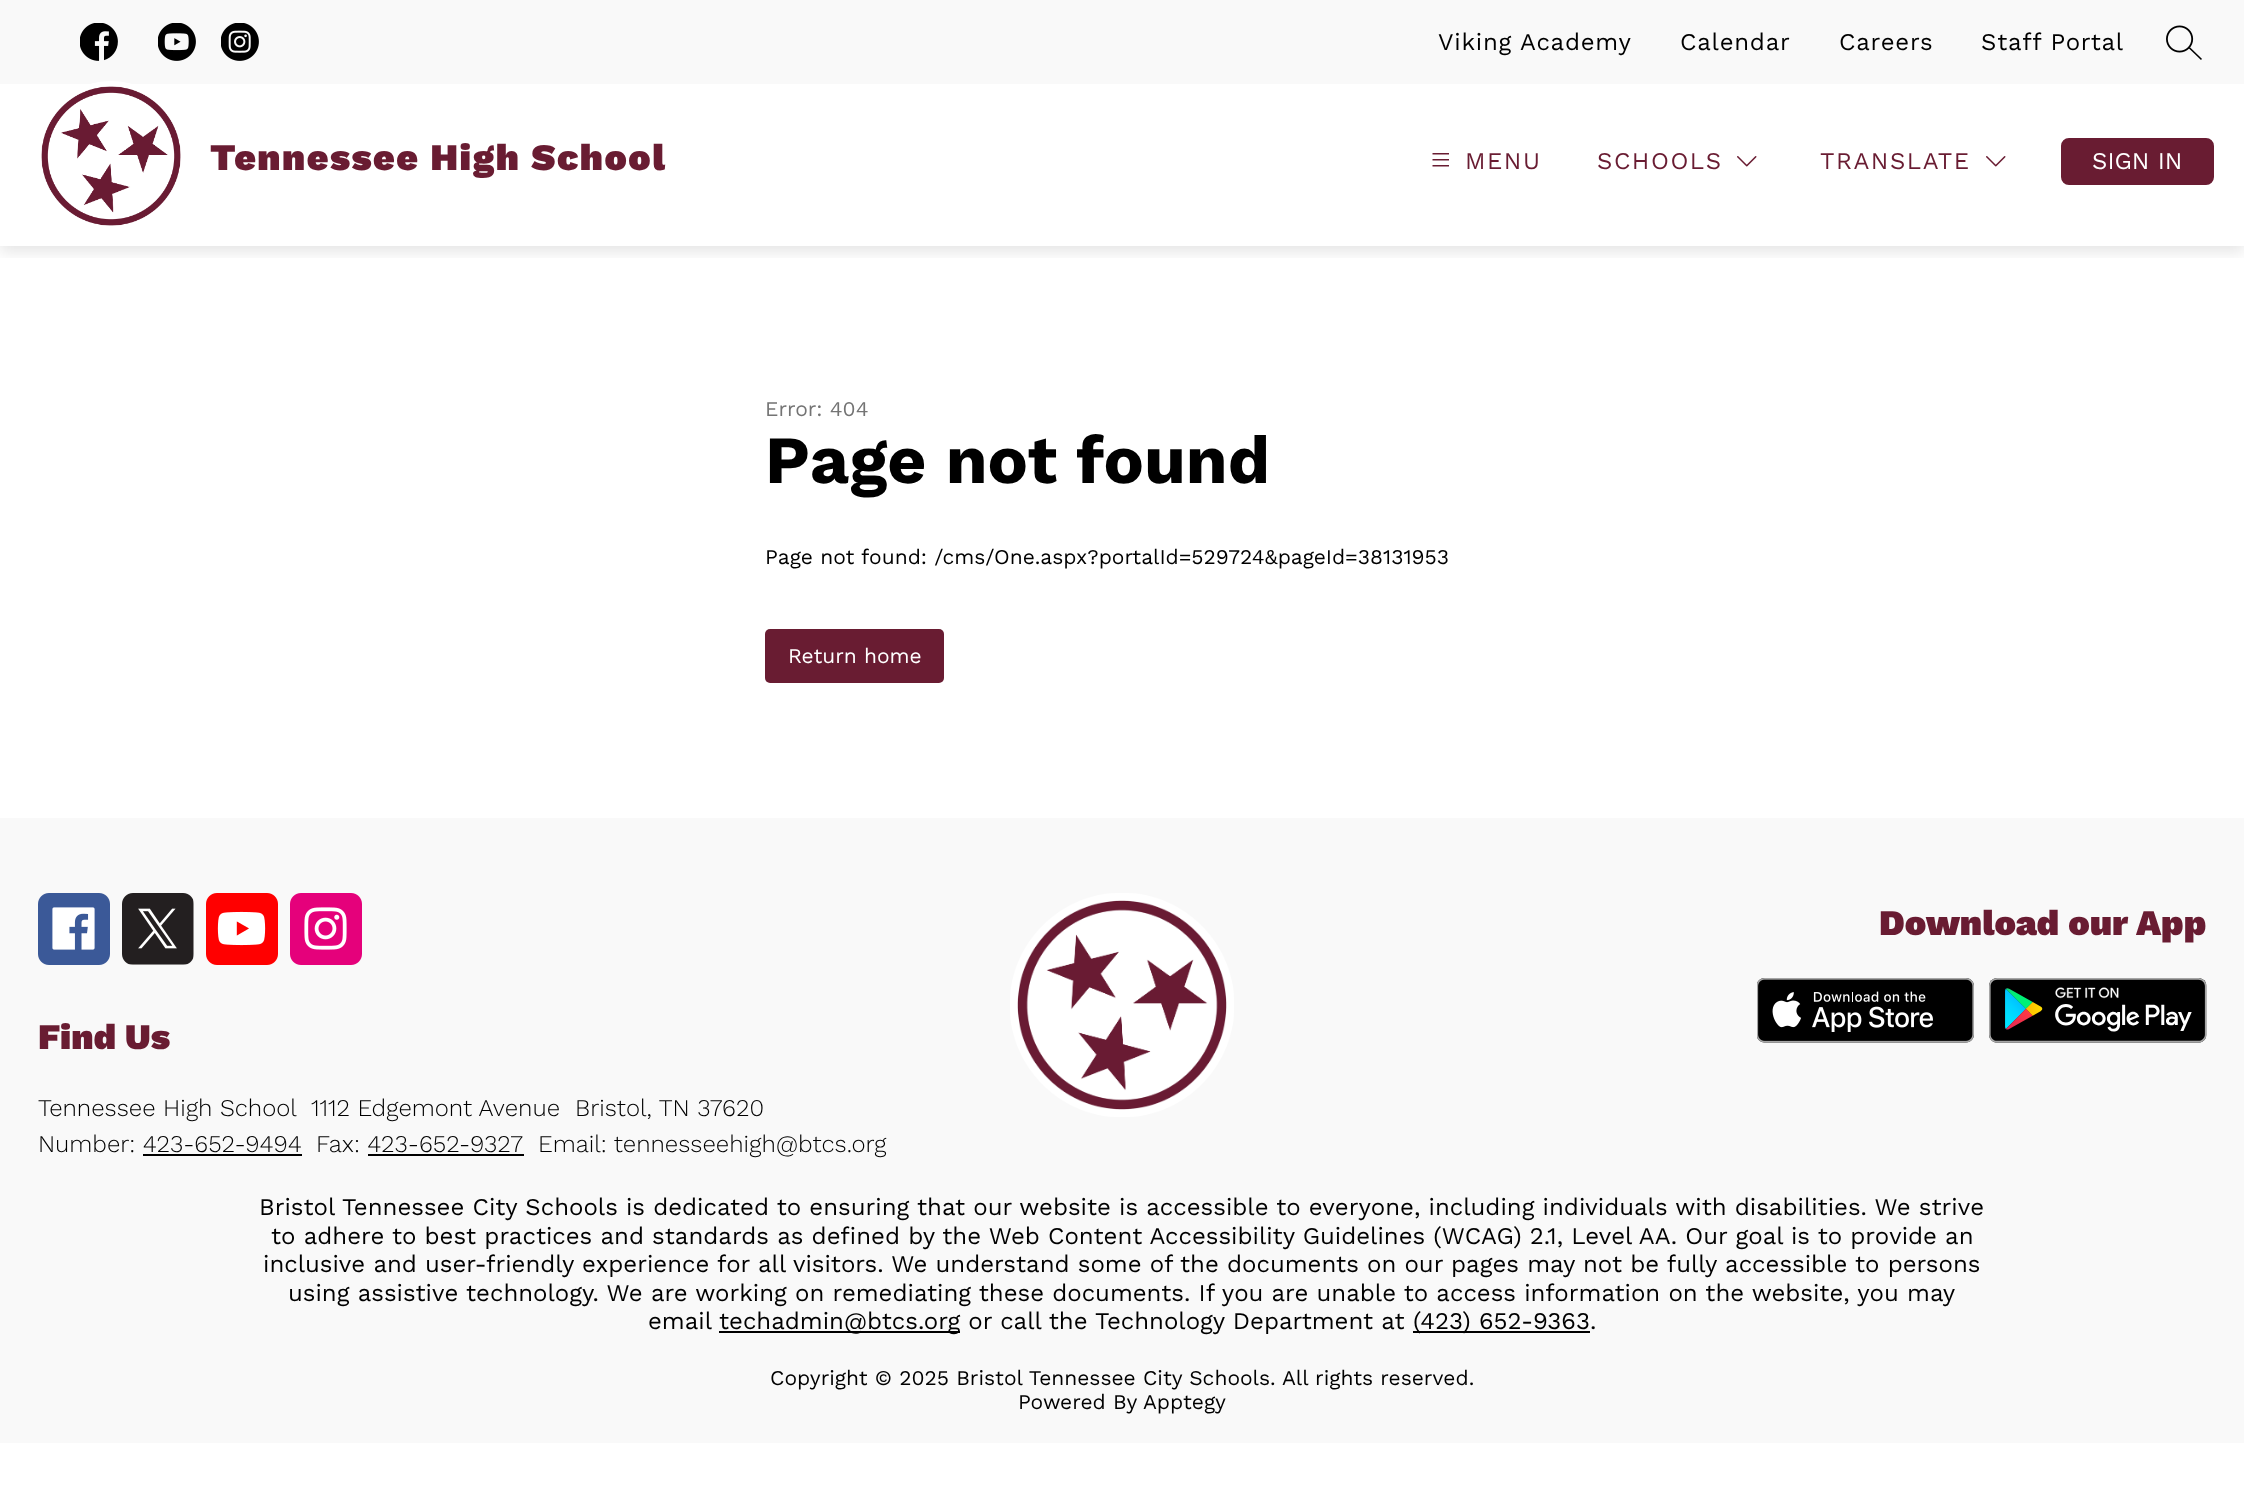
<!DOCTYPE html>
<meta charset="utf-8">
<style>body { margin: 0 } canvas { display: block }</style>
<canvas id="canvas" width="2244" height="1496"></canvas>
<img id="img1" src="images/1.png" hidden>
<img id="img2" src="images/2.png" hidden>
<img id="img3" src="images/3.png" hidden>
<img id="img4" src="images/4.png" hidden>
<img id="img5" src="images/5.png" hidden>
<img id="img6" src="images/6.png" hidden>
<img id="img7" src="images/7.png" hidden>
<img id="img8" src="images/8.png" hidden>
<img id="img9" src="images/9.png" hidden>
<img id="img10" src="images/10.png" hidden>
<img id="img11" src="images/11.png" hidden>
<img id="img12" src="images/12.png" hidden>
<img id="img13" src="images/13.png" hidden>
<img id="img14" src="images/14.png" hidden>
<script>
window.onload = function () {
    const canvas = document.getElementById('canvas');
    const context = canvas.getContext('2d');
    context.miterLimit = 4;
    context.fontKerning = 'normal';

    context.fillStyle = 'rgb(255, 255, 255)';
    context.fillRect(0, 0, 2244, 1496);
    context.save();
    context.beginPath();
    context.rect(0, 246, 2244, 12);
    context.clip();
    context.fillStyle = 'rgba(0, 0, 0, 0.1)';
    context.filter = 'blur(7.5px)';
    context.beginPath();
    context.rect(0, 6, 2244, 246);
    context.fill();
    context.filter = 'none';
    context.restore();
    context.fillStyle = 'rgb(249, 249, 249)';
    context.fillRect(0, 0, 2244, 84);
    context.drawImage(document.getElementById('img1'), 41, 81, 140, 145);
    context.drawImage(document.getElementById('img2'), 80, 23, 38, 38);
    context.drawImage(document.getElementById('img3'), 158, 23, 38, 38);
    context.drawImage(document.getElementById('img4'), 221, 23, 38, 38);
    context.drawImage(document.getElementById('img5'), 2166, 25, 36, 35);
    context.drawImage(document.getElementById('img6'), 1432, 153, 17, 14);
    context.drawImage(document.getElementById('img7'), 1737, 156, 20, 11);
    context.drawImage(document.getElementById('img7'), 1986, 156, 20, 11);
    context.fillStyle = 'rgb(105, 28, 50)';
    context.beginPath();
    context.roundRect(2062, 139, 151, 45, 7);
    context.fill();
    context.strokeStyle = 'rgb(105, 28, 50)';
    context.lineWidth = 2;
    context.stroke();
    context.beginPath();
    context.roundRect(765, 629, 179, 54, 5);
    context.fill();
    context.fillStyle = 'rgb(249, 249, 249)';
    context.fillRect(0, 818, 2244, 625);
    context.drawImage(document.getElementById('img8'), 1010, 893, 224, 224);
    context.drawImage(document.getElementById('img9'), 1757, 978, 217, 65);
    context.drawImage(document.getElementById('img10'), 1989, 978, 218, 65);
    context.drawImage(document.getElementById('img11'), 38, 893, 72, 72);
    context.drawImage(document.getElementById('img12'), 122, 893, 72, 72);
    context.drawImage(document.getElementById('img13'), 206, 893, 72, 72);
    context.drawImage(document.getElementById('img14'), 290, 893, 72, 72);
    context.fillStyle = 'rgb(0, 0, 0)';
    context.fillRect(143, 1154, 159, 2);
    context.fillRect(368, 1154, 156, 2);
    context.fillRect(719, 1331, 241, 2);
    context.fillRect(1413, 1331, 177, 2);
    context.letterSpacing = '1.5px';
    context.font = '900 37.4px Work Sans';
    context.fillStyle = 'rgb(105, 28, 50)';
    context.fillText('Tennessee High School', 210, 170);
    context.letterSpacing = '0.75px';
    context.font = '24px Work Sans';
    context.fillStyle = 'rgb(0, 0, 0)';
    context.fillText('Viking Academy', 1438, 50);
    context.fillText('Calendar', 1680, 50);
    context.fillText('Careers', 1839, 50);
    context.fillText('Staff Portal', 1981, 50);
    context.letterSpacing = '1.5px';
    context.fillStyle = 'rgb(105, 28, 50)';
    context.fillText('MENU', 1465, 169);
    context.fillText('SCHOOLS', 1597, 169);
    context.fillText('TRANSLATE', 1820, 169);
    context.letterSpacing = '0px';
    context.fillStyle = 'rgb(255, 255, 255)';
    context.fillText('SIGN IN', 2092, 169);
    context.font = '21px Work Sans';
    context.fillStyle = 'rgb(116, 116, 116)';
    context.fillText('Error: 404', 765, 416);
    context.font = 'bold 67.5px Work Sans';
    context.fillStyle = 'rgb(0, 0, 0)';
    context.fillText('Page not found', 765, 483);
    context.font = '21px Work Sans';
    context.fillText('Page not found: /cms/One.aspx?portalId=529724&pageId=38131953', 765, 564);
    context.fillStyle = 'rgb(255, 255, 255)';
    context.fillText('Return home', 788, 663);
    context.font = '900 36px Work Sans';
    context.fillStyle = 'rgb(105, 28, 50)';
    context.fillText('Download our App', 1879, 935);
    context.fillText('Find Us', 38, 1049);
    context.font = '300 24px Work Sans';
    context.fillStyle = 'rgb(0, 0, 0)';
    context.fillText('Tennessee High School', 38, 1116);
    context.fillText('1112 Edgemont Avenue', 311, 1116);
    context.fillText('Bristol, TN 37620', 575, 1116);
    context.fillText('Number: 423-652-9494', 38, 1152);
    context.fillText('Fax: 423-652-9327', 316, 1152);
    context.fillText('Email: tennesseehigh@btcs.org', 538, 1152);
    context.font = '24px Work Sans';
    context.fillText('Bristol Tennessee City Schools is dedicated to ensuring that our website is accessible to everyone, including individuals with disabilities. We strive', 259, 1215);
    context.fillText('to adhere to best practices and standards as defined by the Web Content Accessibility Guidelines (WCAG) 2.1, Level AA. Our goal is to provide an', 271, 1244);
    context.fillText('inclusive and user-friendly experience for all visitors. We understand some of the documents on our pages may not be fully accessible to persons', 263, 1272);
    context.fillText('using assistive technology. We are working on remediating these documents. If you are unable to access information on the website, you may', 288, 1301);
    context.fillText('email', 648, 1329);
    context.fillText('techadmin@btcs.org or call the Technology Department at', 719, 1329);
    context.fillText('(423) 652-9363.', 1413, 1329);
    context.font = '21px Work Sans';
    context.fillText('Copyright © 2025 Bristol Tennessee City Schools. All rights reserved.', 770, 1385);
    context.fillText('Powered By', 1018, 1409);
    context.fillText('Apptegy', 1143, 1409);
};
</script>
